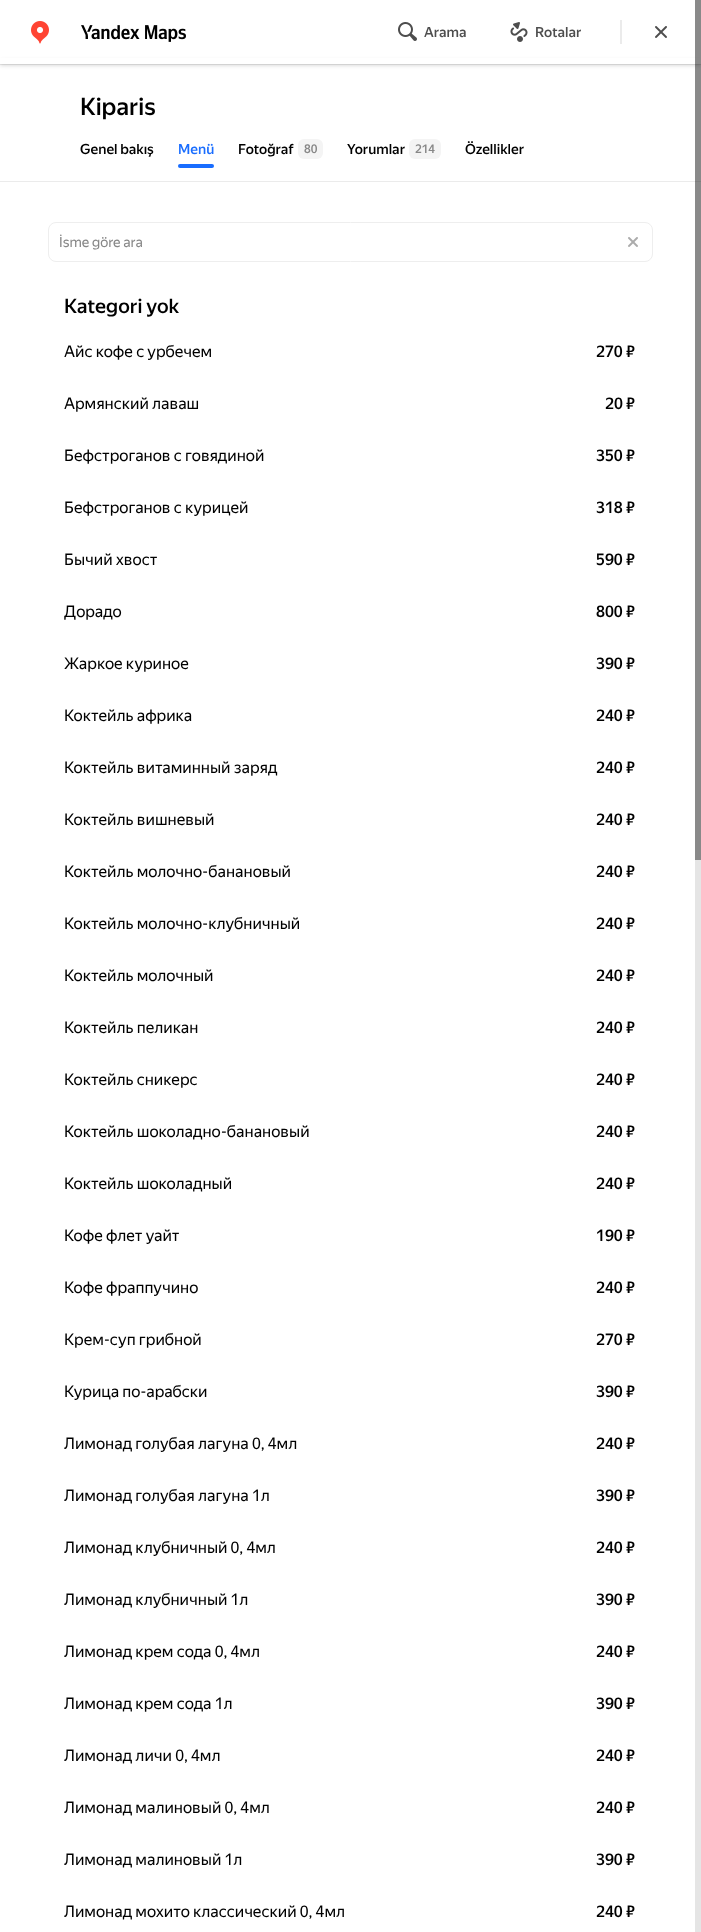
<!DOCTYPE html>
<meta charset="utf-8">
<style>body { margin: 0 } canvas { display: block }</style>
<canvas id="canvas" width="701" height="1932"></canvas>
<img id="img1" src="images/1.png" hidden>
<img id="img2" src="images/2.png" hidden>
<img id="img3" src="images/3.png" hidden>
<img id="img4" src="images/4.png" hidden>
<img id="img5" src="images/5.png" hidden>
<img id="img6" src="images/6.png" hidden>
<script>
window.onload = function () {
    const canvas = document.getElementById('canvas');
    const context = canvas.getContext('2d');
    context.miterLimit = 4;
    context.fontKerning = 'normal';

    context.fillStyle = 'rgb(255, 255, 255)';
    context.fillRect(0, 0, 701, 1932);
    context.fillStyle = 'rgb(235, 235, 235)';
    context.fillRect(0, 64, 701, 1);
    context.fillStyle = 'rgba(0, 0, 0, 0.2)';
    context.filter = 'blur(2px)';
    context.beginPath();
    context.rect(0, 61, 701, 4);
    context.fill();
    context.filter = 'none';
    context.fillStyle = 'rgb(255, 255, 255)';
    context.fillRect(0, 58, 701, 6);
    context.drawImage(document.getElementById('img1'), 31, 21, 18, 23);
    context.drawImage(document.getElementById('img2'), 81, 25, 105, 17);
    context.drawImage(document.getElementById('img3'), 398, 22, 19, 19);
    context.drawImage(document.getElementById('img4'), 510, 22, 18, 20);
    context.fillStyle = 'rgb(235, 235, 235)';
    context.fillRect(620, 20, 2, 24);
    context.drawImage(document.getElementById('img5'), 655, 26, 12, 12);
    context.fillStyle = 'rgb(244, 244, 244)';
    context.beginPath();
    context.roundRect(298, 139, 25, 20, 6);
    context.fill();
    context.beginPath();
    context.roundRect(409, 139, 32, 20, 6);
    context.fill();
    context.fillStyle = 'rgb(25, 109, 255)';
    context.beginPath();
    context.roundRect(178, 164, 36, 4, 2);
    context.fill();
    context.fillStyle = 'rgb(235, 235, 235)';
    context.fillRect(0, 181, 701, 1);
    context.beginPath();
    context.roundRect(48.5, 222.5, 604, 39, 7.5);
    context.strokeStyle = 'rgb(238, 238, 238)';
    context.stroke();
    context.drawImage(document.getElementById('img6'), 628, 237, 10, 10);
    context.fillStyle = 'rgba(0, 0, 0, 0.1)';
    context.fillRect(695, 0, 6, 1932);
    context.fillStyle = 'rgba(0, 0, 0, 0.4)';
    context.fillRect(695, 0, 6, 860);
    context.font = '500 14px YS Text';
    context.fillStyle = 'rgb(77, 77, 77)';
    context.fillText('Arama', 424, 37);
    context.fillText('Rotalar', 535, 37);
    context.font = '500 24px YS Text';
    context.fillStyle = 'rgb(0, 0, 0)';
    context.fillText('Kiparis', 80, 115);
    context.font = '500 14px YS Text';
    context.fillText('Genel bakış', 80, 154);
    context.fillStyle = 'rgb(25, 109, 255)';
    context.fillText('Menü', 178, 154);
    context.fillStyle = 'rgb(0, 0, 0)';
    context.fillText('Fotoğraf', 238, 154);
    context.font = '500 12px YS Text';
    context.fillStyle = 'rgb(135, 135, 135)';
    context.fillText('80', 304, 153);
    context.font = '500 14px YS Text';
    context.fillStyle = 'rgb(0, 0, 0)';
    context.fillText('Yorumlar', 347, 154);
    context.font = '500 12px YS Text';
    context.fillStyle = 'rgb(135, 135, 135)';
    context.fillText('214', 415, 153);
    context.font = '500 14px YS Text';
    context.fillStyle = 'rgb(0, 0, 0)';
    context.fillText('Özellikler', 465, 154);
    context.font = '14px YS Text';
    context.fillStyle = 'rgb(135, 135, 135)';
    context.fillText('İsme göre ara', 59, 247);
    context.font = '500 20px YS Text';
    context.fillStyle = 'rgb(0, 0, 0)';
    context.fillText('Kategori yok', 64, 313);
    context.font = '16px YS Text';
    context.fillText('Айс кофе с урбечем', 64, 357);
    context.font = '500 16px YS Text';
    context.fillText('270 ₽', 596, 357);
    context.font = '16px YS Text';
    context.fillText('Армянский лаваш', 64, 409);
    context.font = '500 16px YS Text';
    context.fillText('20 ₽', 605, 409);
    context.font = '16px YS Text';
    context.fillText('Бефстроганов с говядиной', 64, 461);
    context.font = '500 16px YS Text';
    context.fillText('350 ₽', 596, 461);
    context.font = '16px YS Text';
    context.fillText('Бефстроганов с курицей', 64, 513);
    context.font = '500 16px YS Text';
    context.fillText('318 ₽', 596, 513);
    context.font = '16px YS Text';
    context.fillText('Бычий хвост', 64, 565);
    context.font = '500 16px YS Text';
    context.fillText('590 ₽', 596, 565);
    context.font = '16px YS Text';
    context.fillText('Дорадо', 64, 617);
    context.font = '500 16px YS Text';
    context.fillText('800 ₽', 596, 617);
    context.font = '16px YS Text';
    context.fillText('Жаркое куриное', 64, 669);
    context.font = '500 16px YS Text';
    context.fillText('390 ₽', 596, 669);
    context.font = '16px YS Text';
    context.fillText('Коктейль африка', 64, 721);
    context.font = '500 16px YS Text';
    context.fillText('240 ₽', 596, 721);
    context.font = '16px YS Text';
    context.fillText('Коктейль витаминный заряд', 64, 773);
    context.font = '500 16px YS Text';
    context.fillText('240 ₽', 596, 773);
    context.font = '16px YS Text';
    context.fillText('Коктейль вишневый', 64, 825);
    context.font = '500 16px YS Text';
    context.fillText('240 ₽', 596, 825);
    context.font = '16px YS Text';
    context.fillText('Коктейль молочно-банановый', 64, 877);
    context.font = '500 16px YS Text';
    context.fillText('240 ₽', 596, 877);
    context.font = '16px YS Text';
    context.fillText('Коктейль молочно-клубничный', 64, 929);
    context.font = '500 16px YS Text';
    context.fillText('240 ₽', 596, 929);
    context.font = '16px YS Text';
    context.fillText('Коктейль молочный', 64, 981);
    context.font = '500 16px YS Text';
    context.fillText('240 ₽', 596, 981);
    context.font = '16px YS Text';
    context.fillText('Коктейль пеликан', 64, 1033);
    context.font = '500 16px YS Text';
    context.fillText('240 ₽', 596, 1033);
    context.font = '16px YS Text';
    context.fillText('Коктейль сникерс', 64, 1085);
    context.font = '500 16px YS Text';
    context.fillText('240 ₽', 596, 1085);
    context.font = '16px YS Text';
    context.fillText('Коктейль шоколадно-банановый', 64, 1137);
    context.font = '500 16px YS Text';
    context.fillText('240 ₽', 596, 1137);
    context.font = '16px YS Text';
    context.fillText('Коктейль шоколадный', 64, 1189);
    context.font = '500 16px YS Text';
    context.fillText('240 ₽', 596, 1189);
    context.font = '16px YS Text';
    context.fillText('Кофе флет уайт', 64, 1241);
    context.font = '500 16px YS Text';
    context.fillText('190 ₽', 596, 1241);
    context.font = '16px YS Text';
    context.fillText('Кофе фраппучино', 64, 1293);
    context.font = '500 16px YS Text';
    context.fillText('240 ₽', 596, 1293);
    context.font = '16px YS Text';
    context.fillText('Крем-суп грибной', 64, 1345);
    context.font = '500 16px YS Text';
    context.fillText('270 ₽', 596, 1345);
    context.font = '16px YS Text';
    context.fillText('Курица по-арабски', 64, 1397);
    context.font = '500 16px YS Text';
    context.fillText('390 ₽', 596, 1397);
    context.font = '16px YS Text';
    context.fillText('Лимонад голубая лагуна 0, 4мл', 64, 1449);
    context.font = '500 16px YS Text';
    context.fillText('240 ₽', 596, 1449);
    context.font = '16px YS Text';
    context.fillText('Лимонад голубая лагуна 1л', 64, 1501);
    context.font = '500 16px YS Text';
    context.fillText('390 ₽', 596, 1501);
    context.font = '16px YS Text';
    context.fillText('Лимонад клубничный 0, 4мл', 64, 1553);
    context.font = '500 16px YS Text';
    context.fillText('240 ₽', 596, 1553);
    context.font = '16px YS Text';
    context.fillText('Лимонад клубничный 1л', 64, 1605);
    context.font = '500 16px YS Text';
    context.fillText('390 ₽', 596, 1605);
    context.font = '16px YS Text';
    context.fillText('Лимонад крем сода 0, 4мл', 64, 1657);
    context.font = '500 16px YS Text';
    context.fillText('240 ₽', 596, 1657);
    context.font = '16px YS Text';
    context.fillText('Лимонад крем сода 1л', 64, 1709);
    context.font = '500 16px YS Text';
    context.fillText('390 ₽', 596, 1709);
    context.font = '16px YS Text';
    context.fillText('Лимонад личи 0, 4мл', 64, 1761);
    context.font = '500 16px YS Text';
    context.fillText('240 ₽', 596, 1761);
    context.font = '16px YS Text';
    context.fillText('Лимонад малиновый 0, 4мл', 64, 1813);
    context.font = '500 16px YS Text';
    context.fillText('240 ₽', 596, 1813);
    context.font = '16px YS Text';
    context.fillText('Лимонад малиновый 1л', 64, 1865);
    context.font = '500 16px YS Text';
    context.fillText('390 ₽', 596, 1865);
    context.font = '16px YS Text';
    context.fillText('Лимонад мохито классический 0, 4мл', 64, 1917);
    context.font = '500 16px YS Text';
    context.fillText('240 ₽', 596, 1917);
};
</script>
